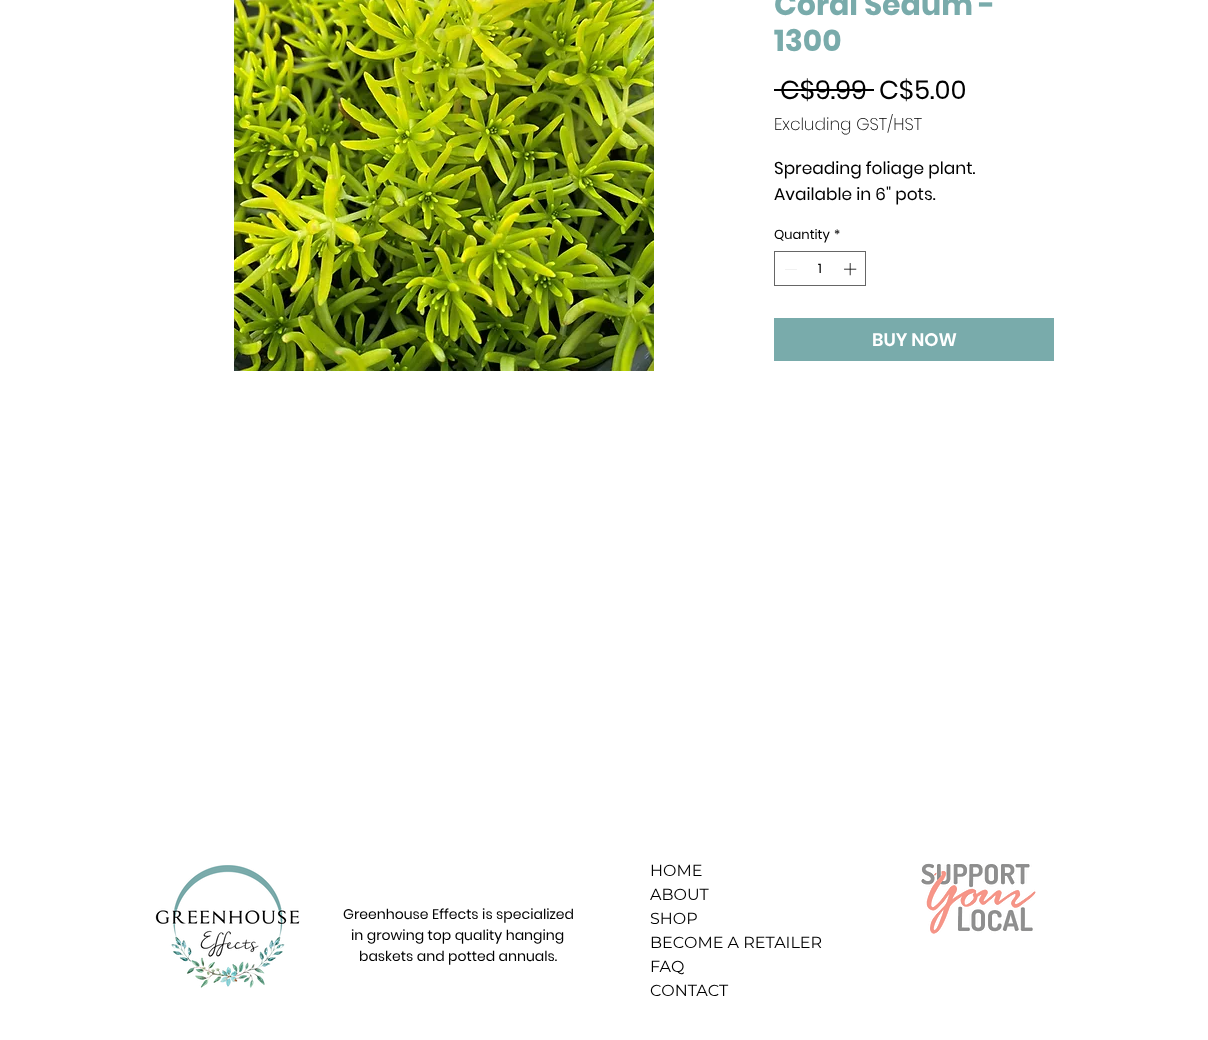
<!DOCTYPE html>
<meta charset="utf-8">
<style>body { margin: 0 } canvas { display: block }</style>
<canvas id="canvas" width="1208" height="1040"></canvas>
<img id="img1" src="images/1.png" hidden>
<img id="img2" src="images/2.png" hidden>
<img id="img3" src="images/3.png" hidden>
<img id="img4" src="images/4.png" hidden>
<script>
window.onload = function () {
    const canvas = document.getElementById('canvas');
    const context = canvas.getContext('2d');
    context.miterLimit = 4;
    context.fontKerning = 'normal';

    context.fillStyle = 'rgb(255, 255, 255)';
    context.fillRect(0, 0, 1208, 1040);
    context.drawImage(document.getElementById('img1'), 234, 0, 420, 371);
    context.fillStyle = 'rgb(0, 0, 0)';
    context.fillRect(774, 89, 100, 2);
    context.strokeStyle = 'rgb(102, 102, 102)';
    context.strokeRect(774.5, 251.5, 91, 34);
    context.fillStyle = 'rgb(227, 227, 227)';
    context.beginPath();
    context.moveTo(797, 269);
    context.lineTo(797, 269.5);
    context.lineTo(785, 269.5);
    context.lineTo(785, 269);
    context.closePath();
    context.fill('evenodd');
    context.drawImage(document.getElementById('img2'), 844, 263, 13, 13);
    context.fillStyle = 'rgb(121, 171, 171)';
    context.fillRect(774, 318, 280, 43);
    context.drawImage(document.getElementById('img3'), 155, 865, 145, 123);
    context.drawImage(document.getElementById('img4'), 921, 863, 115, 71);
    context.font = 'bold 30px Poppins';
    context.fillText('Coral Sedum -', 774, 15);
    context.fillText('1300', 774, 51);
    context.font = '26px Poppins';
    context.fillStyle = 'rgb(0, 0, 0)';
    context.fillText('C$9.99', 780, 99);
    context.fillText('C$5.00', 879, 99);
    context.font = '200 17px Poppins';
    context.fillText('Excluding GST/HST', 774, 130);
    context.font = '17px Poppins';
    context.fillText('Spreading foliage plant.', 774, 174);
    context.fillText('Available in 6" pots.', 774, 200);
    context.font = '13px Poppins';
    context.fillText('Quantity', 774, 239);
    context.fillText('*', 834, 239);
    context.fillText('1', 818, 273);
    context.font = '600 18px Poppins';
    context.fillStyle = 'rgb(255, 255, 255)';
    context.fillText('BUY NOW', 872, 346);
    context.font = '14px Poppins';
    context.fillStyle = 'rgb(0, 0, 0)';
    context.fillText('Greenhouse Effects is specialized', 343, 919);
    context.fillText('in growing top quality hanging', 351, 940);
    context.fillText('baskets and potted annuals.', 359, 961);
    context.font = '16px Montserrat';
    context.fillText('HOME', 650, 876);
    context.fillText('ABOUT', 650, 900);
    context.fillText('SHOP', 650, 924);
    context.fillText('BECOME A RETAILER', 650, 948);
    context.fillText('FAQ', 650, 972);
    context.fillText('CONTACT', 650, 996);
};
</script>
